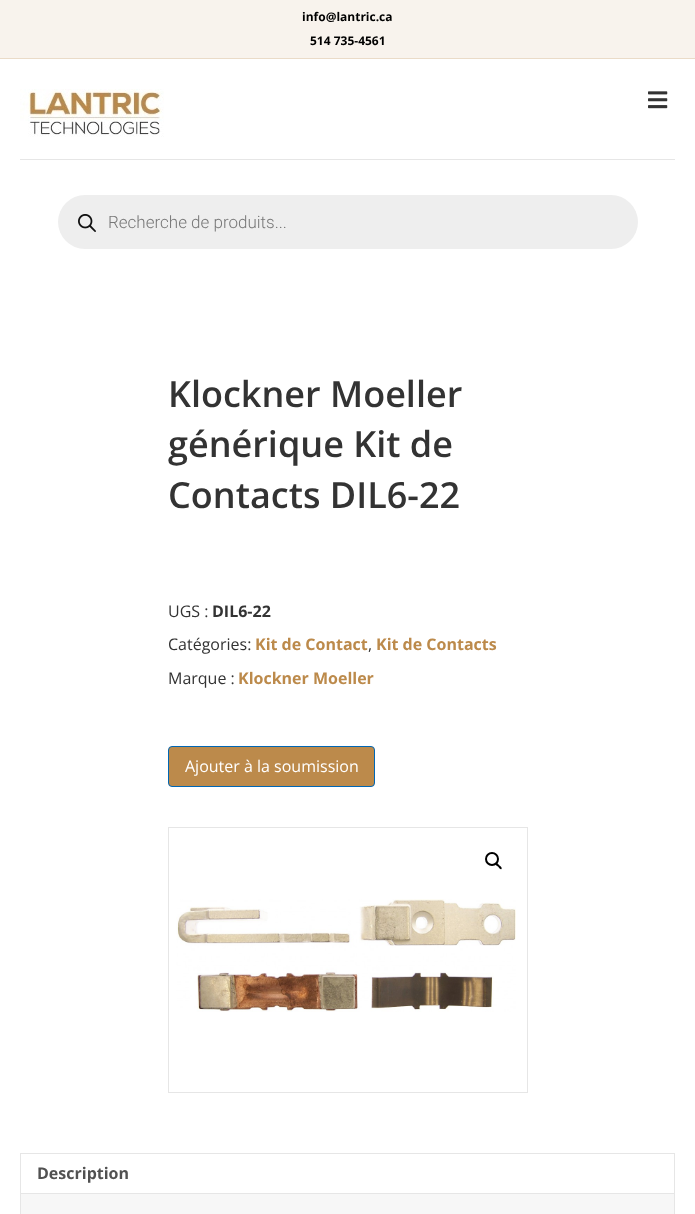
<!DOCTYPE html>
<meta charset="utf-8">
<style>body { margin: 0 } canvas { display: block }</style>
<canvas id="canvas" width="695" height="1214"></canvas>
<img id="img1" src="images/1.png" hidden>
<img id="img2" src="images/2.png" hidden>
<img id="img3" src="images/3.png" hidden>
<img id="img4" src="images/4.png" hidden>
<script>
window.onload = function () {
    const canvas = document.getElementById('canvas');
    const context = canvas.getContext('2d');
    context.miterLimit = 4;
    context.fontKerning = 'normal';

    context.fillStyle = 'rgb(248, 243, 237)';
    context.fillRect(0, 0, 695, 1214);
    context.fillStyle = 'rgb(234, 219, 200)';
    context.fillRect(0, 58, 695, 1);
    context.fillStyle = 'rgb(255, 255, 255)';
    context.fillRect(0, 59, 695, 1155);
    context.drawImage(document.getElementById('img1'), 648, 91, 20, 18);
    context.drawImage(document.getElementById('img2'), 20, 89, 144, 48);
    context.fillStyle = 'rgb(230, 230, 230)';
    context.fillRect(20, 159, 655, 1);
    context.fillStyle = 'rgb(238, 238, 238)';
    context.beginPath();
    context.roundRect(58, 195, 580, 54, 27);
    context.fill();
    context.drawImage(document.getElementById('img3'), 78, 214, 18, 18);
    context.fillStyle = 'rgb(188, 138, 75)';
    context.beginPath();
    context.roundRect(168.5, 746.5, 206, 40, 3.5);
    context.fill();
    context.strokeStyle = 'rgb(0, 102, 180)';
    context.stroke();
    context.strokeStyle = 'rgb(230, 230, 230)';
    context.strokeRect(168.5, 827.5, 359, 265);
    context.drawImage(document.getElementById('img4'), 176, 899, 340, 113);
    context.beginPath();
    context.arc(492, 859, 6, 0, 2 * Math.PI);
    context.strokeStyle = 'rgb(0, 0, 0)';
    context.lineWidth = 2;
    context.stroke();
    context.fillStyle = 'rgb(0, 0, 0)';
    context.beginPath();
    context.moveTo(495.5, 863);
    context.bezierCurveTo(497, 862, 498.5, 864.5, 499, 865);
    context.bezierCurveTo(500, 866, 502.5, 867.5, 501.5, 869);
    context.bezierCurveTo(500, 870, 498.5, 867, 498, 866.5);
    context.bezierCurveTo(497, 866, 494.5, 864.5, 495.5, 863);
    context.closePath();
    context.fill();
    context.fillStyle = 'rgb(230, 230, 230)';
    context.fillRect(20, 1153, 655, 1);
    context.fillRect(674, 1153, 1, 40);
    context.fillRect(20, 1153, 1, 40);
    context.fillStyle = 'rgb(247, 247, 247)';
    context.fillRect(21, 1194, 653, 20);
    context.fillStyle = 'rgb(230, 230, 230)';
    context.fillRect(20, 1193, 655, 1);
    context.fillRect(674, 1193, 1, 21);
    context.fillRect(20, 1193, 1, 21);
    context.font = 'bold 12px Open Sans';
    context.fillStyle = 'rgb(0, 0, 0)';
    context.fillText('info@lantric.ca', 302, 21);
    context.fillText('514 735-4561', 310, 45);
    context.font = '300 17px Roboto';
    context.fillStyle = 'rgb(119, 119, 119)';
    context.fillText('Recherche de produits...', 108, 228);
    context.font = '600 36px Open Sans';
    context.fillStyle = 'rgb(51, 51, 51)';
    context.fillText('Klockner Moeller', 168, 407);
    context.fillText('générique Kit de', 168, 457);
    context.fillText('Contacts DIL6-22', 168, 508);
    context.font = '16px Open Sans';
    context.fillText('UGS :', 168, 617);
    context.font = 'bold 16px Open Sans';
    context.fillText('DIL6-22', 212, 617);
    context.font = '16px Open Sans';
    context.fillText('Catégories:', 168, 650);
    context.font = 'bold 16px Open Sans';
    context.fillStyle = 'rgb(188, 138, 75)';
    context.fillText('Kit de Contact', 255, 650);
    context.font = '16px Open Sans';
    context.fillStyle = 'rgb(51, 51, 51)';
    context.fillText(',', 368, 650);
    context.font = 'bold 16px Open Sans';
    context.fillStyle = 'rgb(188, 138, 75)';
    context.fillText('Kit de Contacts', 376, 650);
    context.font = '16px Open Sans';
    context.fillStyle = 'rgb(51, 51, 51)';
    context.fillText('Marque :', 168, 684);
    context.font = 'bold 16px Open Sans';
    context.fillStyle = 'rgb(188, 138, 75)';
    context.fillText('Klockner Moeller', 238, 684);
    context.font = '16px Open Sans';
    context.fillStyle = 'rgb(255, 255, 255)';
    context.fillText('Ajouter à la soumission', 185, 772);
    context.font = 'bold 16px Open Sans';
    context.fillStyle = 'rgb(81, 81, 81)';
    context.fillText('Description', 37, 1179);
};
</script>
